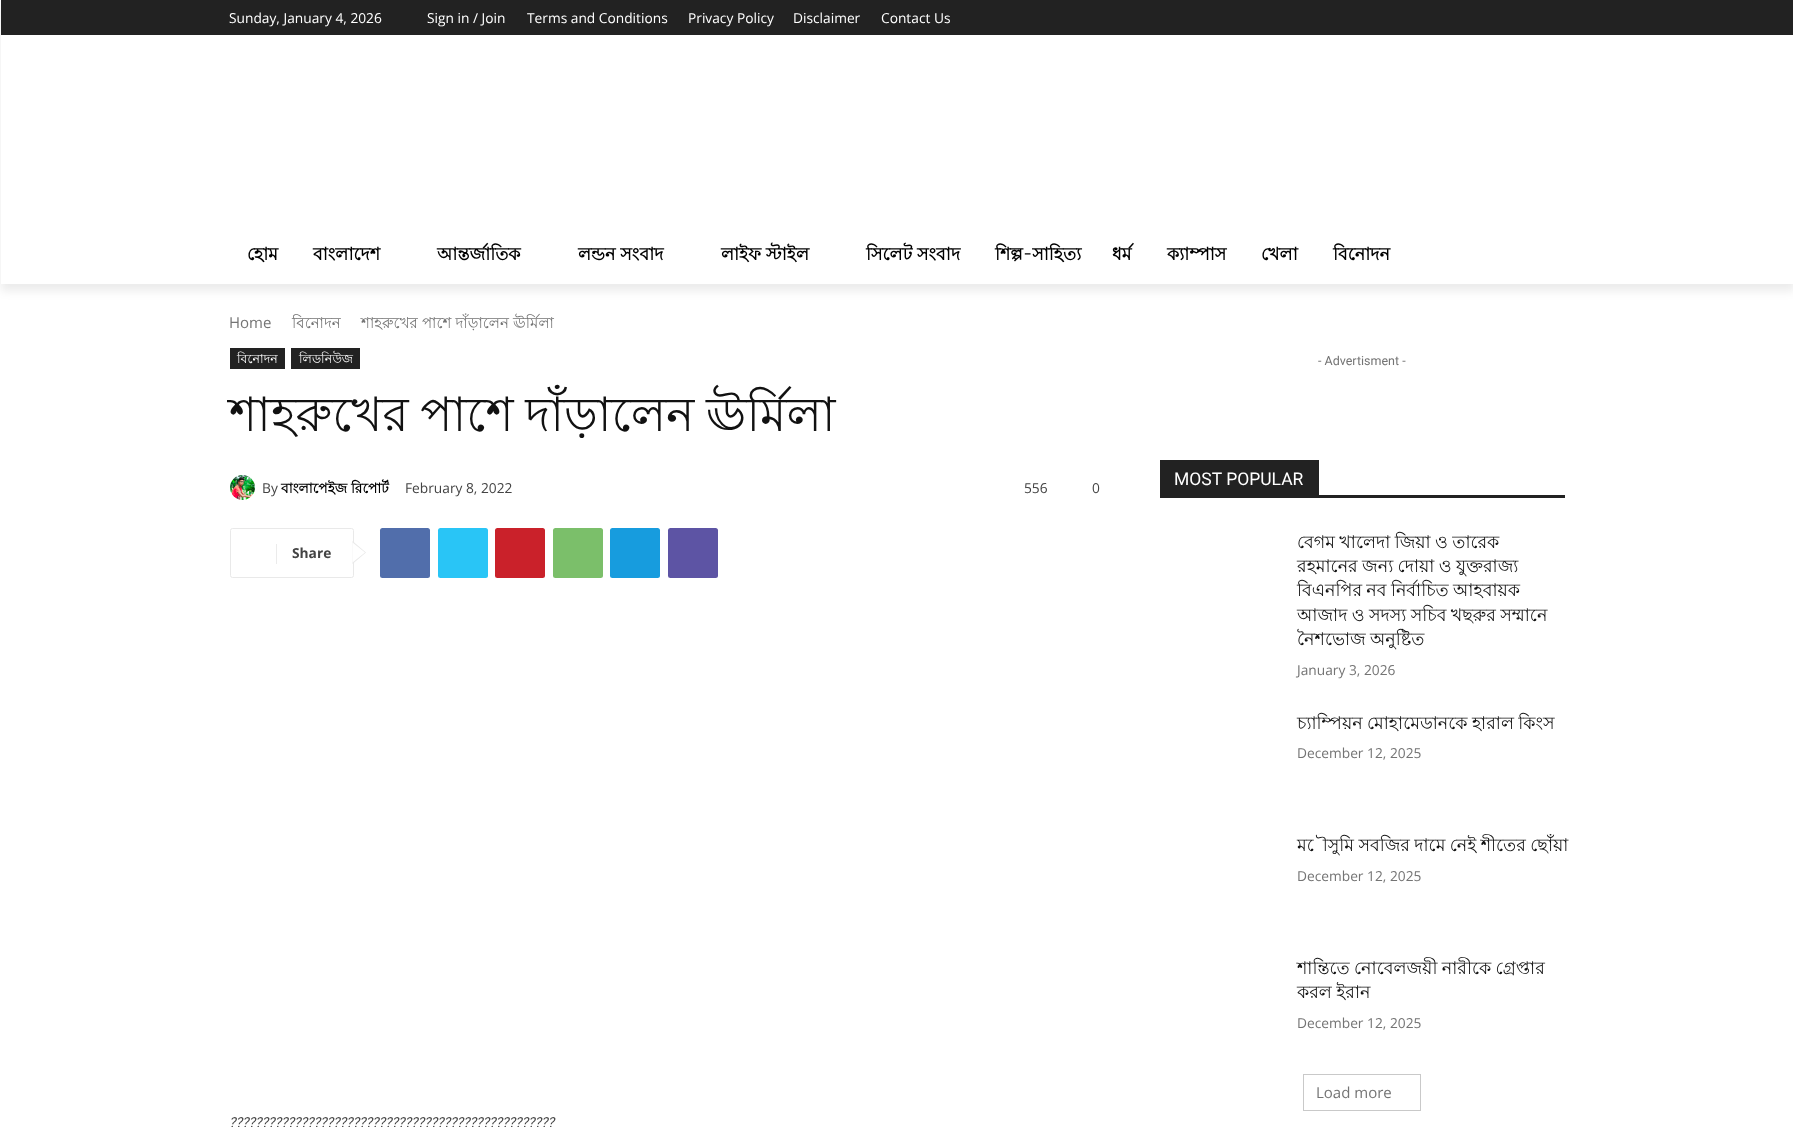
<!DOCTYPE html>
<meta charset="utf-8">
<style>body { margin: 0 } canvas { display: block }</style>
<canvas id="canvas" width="1793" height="1142"></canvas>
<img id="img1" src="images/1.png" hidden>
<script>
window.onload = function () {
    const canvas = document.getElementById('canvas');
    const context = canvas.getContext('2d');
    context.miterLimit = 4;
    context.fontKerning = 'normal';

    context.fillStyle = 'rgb(255, 255, 255)';
    context.fillRect(0, 0, 1793, 1142);
    context.fillStyle = 'rgb(34, 34, 34)';
    context.fillRect(1, 0, 1792, 35);
    context.save();
    context.beginPath();
    context.moveTo(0, 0);
    context.lineTo(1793, 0);
    context.lineTo(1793, 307);
    context.lineTo(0, 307);
    context.closePath();
    context.moveTo(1, 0);
    context.lineTo(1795, 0);
    context.lineTo(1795, 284);
    context.lineTo(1, 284);
    context.closePath();
    context.clip('evenodd');
    context.fillStyle = 'rgba(0, 0, 0, 0.08)';
    context.filter = 'blur(5px)';
    context.beginPath();
    context.rect(1, 8, 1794, 283);
    context.fill();
    context.filter = 'none';
    context.restore();
    context.fillRect(230, 348, 55, 21);
    context.fillRect(291, 348, 69, 21);
    context.drawImage(document.getElementById('img1'), 230, 475, 25, 25);
    context.beginPath();
    context.roundRect(230.5, 528.5, 123, 49, 2);
    context.strokeStyle = 'rgb(233, 233, 233)';
    context.stroke();
    context.fillStyle = 'rgb(233, 233, 233)';
    context.beginPath();
    context.moveTo(352.5, 564);
    context.lineTo(352.5, 541);
    context.lineTo(366, 552.5);
    context.closePath();
    context.fill();
    context.fillStyle = 'rgb(235, 235, 235)';
    context.fillRect(276, 544, 1, 20);
    context.fillStyle = 'rgb(255, 255, 255)';
    context.beginPath();
    context.moveTo(352.5, 562.5);
    context.lineTo(352.5, 542.5);
    context.lineTo(365, 552.5);
    context.closePath();
    context.fill();
    context.fillStyle = 'rgb(81, 110, 171)';
    context.beginPath();
    context.roundRect(380, 528, 50, 50, 2.5);
    context.fill();
    context.fillStyle = 'rgb(41, 197, 246)';
    context.beginPath();
    context.roundRect(438, 528, 50, 50, 2.5);
    context.fill();
    context.fillStyle = 'rgb(202, 33, 42)';
    context.beginPath();
    context.roundRect(495, 528, 50, 50, 2.5);
    context.fill();
    context.fillStyle = 'rgb(123, 191, 106)';
    context.beginPath();
    context.roundRect(553, 528, 50, 50, 2.5);
    context.fill();
    context.fillStyle = 'rgb(23, 156, 222)';
    context.beginPath();
    context.roundRect(610, 528, 50, 50, 2.5);
    context.fill();
    context.fillStyle = 'rgb(93, 84, 164)';
    context.beginPath();
    context.roundRect(668, 528, 50, 50, 2.5);
    context.fill();
    context.fillStyle = 'rgb(34, 34, 34)';
    context.fillRect(1160, 495, 405, 3);
    context.fillRect(1160, 460, 159, 35);
    context.strokeStyle = 'rgb(201, 201, 201)';
    context.strokeRect(1303.5, 1074.5, 117, 36);
    context.font = '13.75px Open Sans';
    context.fillStyle = 'rgb(255, 255, 255)';
    context.fillText('Sunday, January 4, 2026', 229, 23);
    context.fillText('Sign in / Join', 427, 23);
    context.fillText('Terms and Conditions', 527, 23);
    context.fillText('Privacy Policy', 688, 23);
    context.fillText('Disclaimer', 793, 23);
    context.fillText('Contact Us', 881, 23);
    context.font = 'bold 17.5px Lohit Bengali';
    context.fillStyle = 'rgb(0, 0, 0)';
    context.fillText('হোম', 247, 260);
    context.fillText('বাংলাদেশ', 313, 260);
    context.fillText('আন্তর্জাতিক', 437, 260);
    context.fillText('লন্ডন সংবাদ', 578, 260);
    context.fillText('লাইফ স্টাইল', 721, 260);
    context.fillText('সিলেট সংবাদ', 866, 260);
    context.fillText('শিল্প-সাহিত্য', 995, 260);
    context.fillText('ধর্ম', 1112, 260);
    context.fillText('ক্যাম্পাস', 1167, 260);
    context.fillText('খেলা', 1261, 260);
    context.fillText('বিনোদন', 1333, 260);
    context.font = '15px Open Sans';
    context.fillStyle = 'rgb(116, 116, 116)';
    context.fillText('Home', 229, 328);
    context.font = '15px Lohit Bengali';
    context.fillText('বিনোদন', 292, 328);
    context.fillText('শাহরুখের পাশে দাঁড়ালেন ঊর্মিলা', 361, 328);
    context.font = '12.5px Lohit Bengali';
    context.fillStyle = 'rgb(255, 255, 255)';
    context.fillText('বিনোদন', 237, 363);
    context.fillText('লিডনিউজ', 299, 363);
    context.wordSpacing = '-1.5px';
    context.font = '47.5px Lohit Bengali';
    context.fillStyle = 'rgb(17, 17, 17)';
    context.fillText('শাহরুখের পাশে দাঁড়ালেন ঊর্মিলা', 229, 431);
    context.wordSpacing = '0px';
    context.font = '13.75px Open Sans';
    context.fillStyle = 'rgb(68, 68, 68)';
    context.fillText('By', 262, 493);
    context.font = 'bold 13.75px Lohit Bengali';
    context.fillStyle = 'rgb(0, 0, 0)';
    context.fillText('বাংলাপেইজ রিপোর্ট', 281, 493);
    context.font = '13.75px Open Sans';
    context.fillStyle = 'rgb(68, 68, 68)';
    context.fillText('February 8, 2022', 405, 493);
    context.fillText('556', 1024, 493);
    context.fillText('0', 1092, 493);
    context.font = 'bold 13.75px Open Sans';
    context.fillText('Share', 292, 558);
    context.font = 'italic 13.75px Roboto';
    context.fillText('??????????????????????????????????????????????????', 229, 1127);
    context.font = '12.5px Roboto';
    context.fillStyle = 'rgb(116, 116, 116)';
    context.fillText('- Advertisment -', 1318, 365);
    context.font = '17.5px Roboto';
    context.fillStyle = 'rgb(255, 255, 255)';
    context.fillText('MOST POPULAR', 1174, 485);
    context.wordSpacing = '-0.5px';
    context.font = '17.5px Lohit Bengali';
    context.fillStyle = 'rgb(17, 17, 17)';
    context.fillText('বেগম খালেদা জিয়া ও তারেক', 1297, 548);
    context.fillText('রহমানের জন‍্য দোয়া ও যুক্তরাজ্য', 1297, 572);
    context.fillText('বিএনপির নব নির্বাচিত আহবায়ক', 1297, 596);
    context.fillText('আজাদ ও সদস্য সচিব খছরুর সম্মানে', 1297, 621);
    context.fillText('নৈশভোজ অনুষ্টিত', 1297, 645);
    context.wordSpacing = '0px';
    context.font = '13.75px Open Sans';
    context.fillStyle = 'rgb(116, 116, 116)';
    context.fillText('January 3, 2026', 1297, 675);
    context.wordSpacing = '-0.5px';
    context.font = '17.5px Lohit Bengali';
    context.fillStyle = 'rgb(17, 17, 17)';
    context.fillText('চ্যাম্পিয়ন মোহামেডানকে হারাল কিংস', 1297, 729);
    context.wordSpacing = '0px';
    context.font = '13.75px Open Sans';
    context.fillStyle = 'rgb(116, 116, 116)';
    context.fillText('December 12, 2025', 1297, 758);
    context.wordSpacing = '-0.5px';
    context.font = '17.5px Lohit Bengali';
    context.fillStyle = 'rgb(17, 17, 17)';
    context.fillText('মৌসুমি সবজির দামে নেই শীতের ছোঁয়া', 1297, 851);
    context.wordSpacing = '0px';
    context.font = '13.75px Open Sans';
    context.fillStyle = 'rgb(116, 116, 116)';
    context.fillText('December 12, 2025', 1297, 881);
    context.wordSpacing = '-0.5px';
    context.font = '17.5px Lohit Bengali';
    context.fillStyle = 'rgb(17, 17, 17)';
    context.fillText('শান্তিতে নোবেলজয়ী নারীকে গ্রেপ্তার', 1297, 974);
    context.fillText('করল ইরান', 1297, 998);
    context.wordSpacing = '0px';
    context.font = '13.75px Open Sans';
    context.fillStyle = 'rgb(116, 116, 116)';
    context.fillText('December 12, 2025', 1297, 1028);
    context.font = '15px Open Sans';
    context.fillText('Load more', 1316, 1098);
};
</script>
